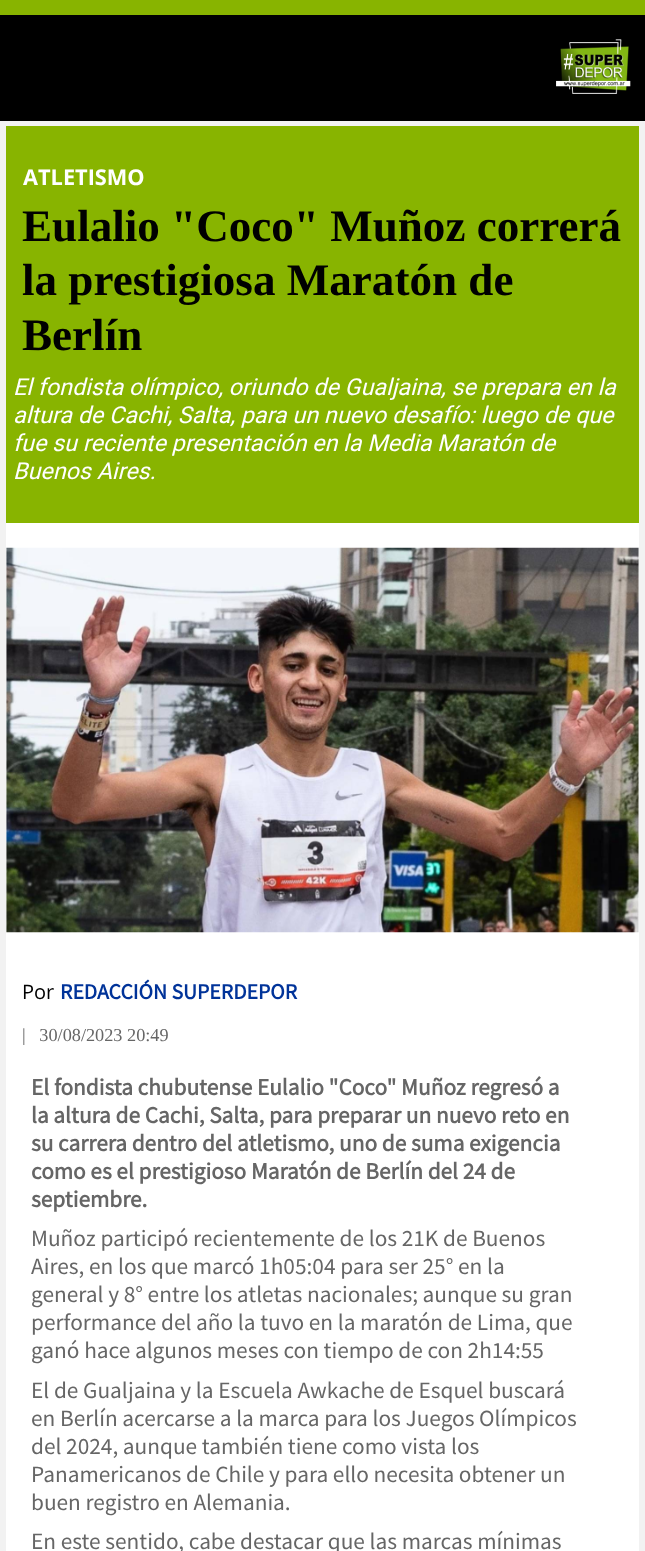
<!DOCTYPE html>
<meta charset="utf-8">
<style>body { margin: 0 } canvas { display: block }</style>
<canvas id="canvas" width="645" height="1551"></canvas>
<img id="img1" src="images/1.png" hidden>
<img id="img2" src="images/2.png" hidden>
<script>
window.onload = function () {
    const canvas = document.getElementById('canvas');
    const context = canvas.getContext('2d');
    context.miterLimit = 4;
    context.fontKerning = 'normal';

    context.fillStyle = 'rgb(242, 242, 242)';
    context.fillRect(0, 0, 645, 1551);
    context.fillStyle = 'rgb(0, 0, 0)';
    context.fillRect(0, 15, 645, 106);
    context.fillStyle = 'rgb(136, 180, 0)';
    context.fillRect(0, 0, 645, 15);
    context.drawImage(document.getElementById('img1'), 556, 39, 75, 55);
    context.fillStyle = 'rgb(255, 255, 255)';
    context.fillRect(6, 523, 633, 1028);
    context.fillStyle = 'rgb(136, 180, 0)';
    context.fillRect(6, 126, 633, 397);
    context.drawImage(document.getElementById('img2'), 6, 547, 633, 386);
    context.font = 'bold 21.75px Open Sans';
    context.fillStyle = 'rgb(255, 255, 255)';
    context.fillText('ATLETISMO', 23, 185);
    context.font = 'bold 45.1px Liberation Serif';
    context.fillStyle = 'rgb(0, 0, 0)';
    context.fillText('Eulalio "Coco" Muñoz correrá', 22, 241);
    context.fillText('la prestigiosa Maratón de', 22, 295);
    context.fillText('Berlín', 22, 350);
    context.font = 'italic 23.3px Roboto';
    context.fillStyle = 'rgb(255, 255, 255)';
    context.fillText('El fondista olímpico, oriundo de Gualjaina, se prepara en la', 13, 395);
    context.fillText('altura de Cachi, Salta, para un nuevo desafío: luego de que', 13, 423);
    context.fillText('fue su reciente presentación en la Media Maratón de', 13, 451);
    context.fillText('Buenos Aires.', 13, 479);
    context.font = '20px Open Sans';
    context.fillStyle = 'rgb(0, 0, 0)';
    context.fillText('Por', 22, 999);
    context.font = 'bold 21.75px Source Sans Pro';
    context.fillStyle = 'rgb(0, 51, 153)';
    context.fillText('REDACCIÓN SUPERDEPOR', 60, 999);
    context.font = '18.25px Liberation Serif';
    context.fillStyle = 'rgb(102, 102, 102)';
    context.fillText('|   30/08/2023 20:49', 22, 1041);
    context.font = 'bold 23.3px Source Sans Pro';
    context.fillText('El fondista chubutense Eulalio "Coco" Muñoz regresó a', 31, 1095);
    context.fillText('la altura de Cachi, Salta, para preparar un nuevo reto en', 31, 1123);
    context.fillText('su carrera dentro del atletismo, uno de suma exigencia', 31, 1151);
    context.fillText('como es el prestigioso Maratón de Berlín del 24 de', 31, 1179);
    context.fillText('septiembre.', 31, 1207);
    context.font = '23.3px Source Sans Pro';
    context.fillText('Muñoz participó recientemente de los 21K de Buenos', 31, 1246);
    context.fillText('Aires, en los que marcó 1h05:04 para ser 25° en la', 31, 1274);
    context.fillText('general y 8° entre los atletas nacionales; aunque su gran', 31, 1302);
    context.fillText('performance del año la tuvo en la maratón de Lima, que', 31, 1330);
    context.fillText('ganó hace algunos meses con tiempo de con 2h14:55', 31, 1358);
    context.fillText('El de Gualjaina y la Escuela Awkache de Esquel buscará', 31, 1398);
    context.fillText('en Berlín acercarse a la marca para los Juegos Olímpicos', 31, 1426);
    context.fillText('del 2024, aunque también tiene como vista los', 31, 1454);
    context.fillText('Panamericanos de Chile y para ello necesita obtener un', 31, 1482);
    context.fillText('buen registro en Alemania.', 31, 1510);
    context.fillText('En este sentido, cabe destacar que las marcas mínimas', 31, 1549);
};
</script>
